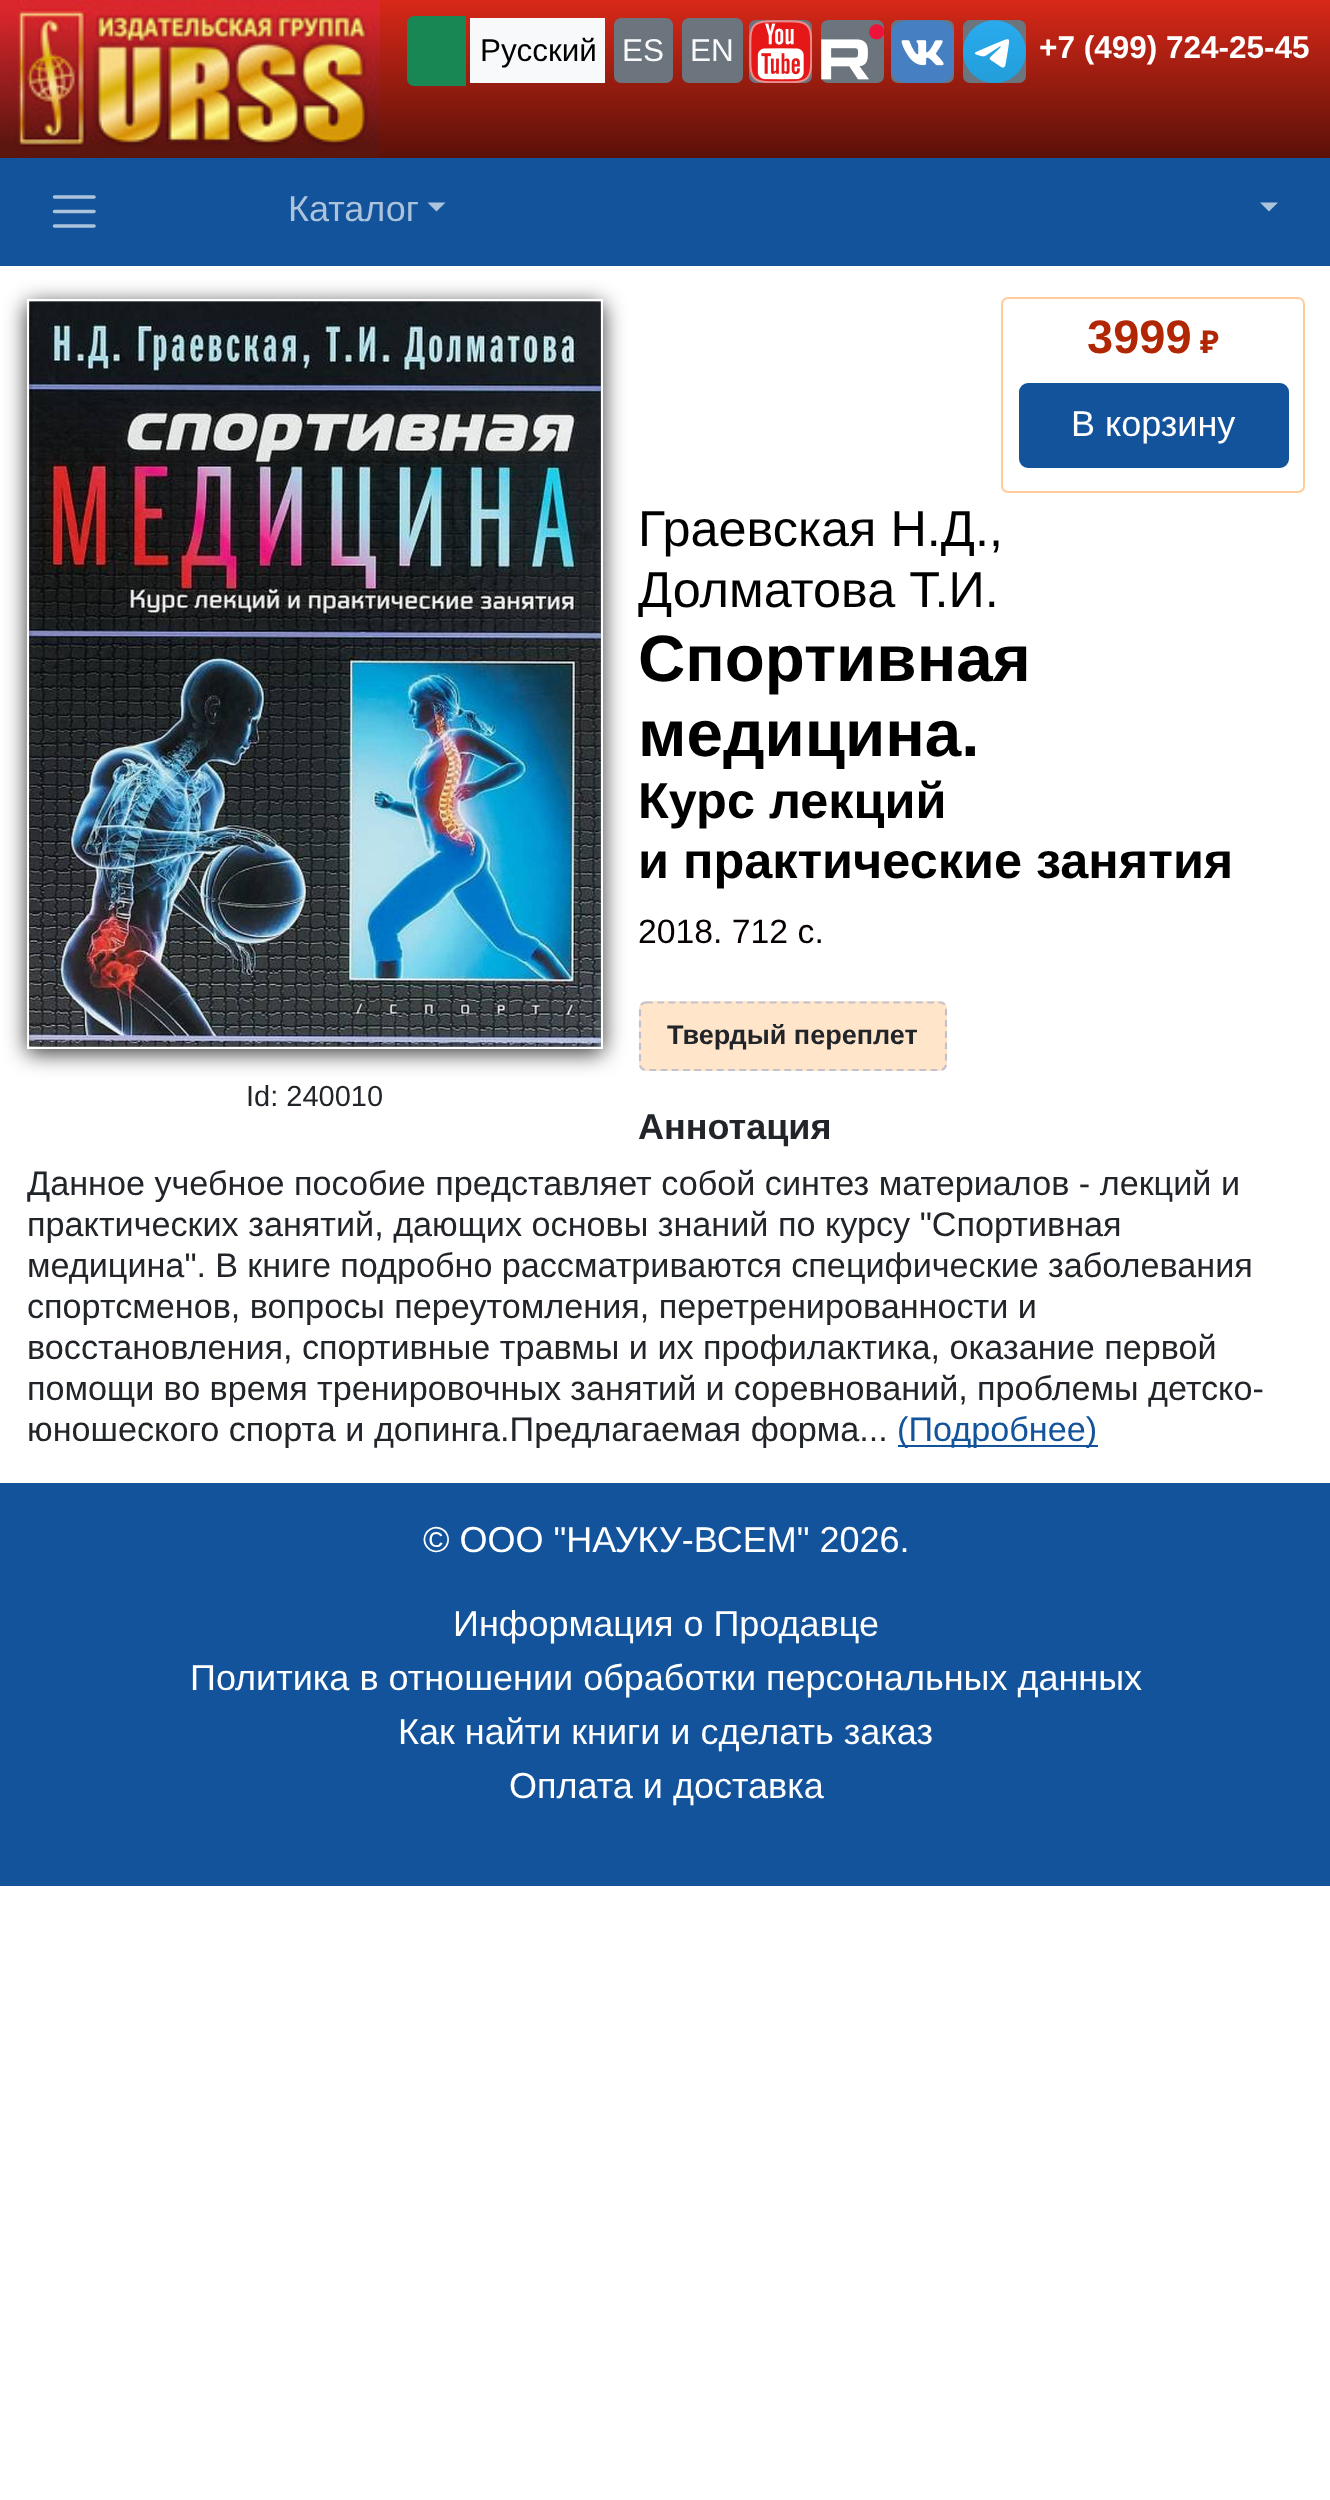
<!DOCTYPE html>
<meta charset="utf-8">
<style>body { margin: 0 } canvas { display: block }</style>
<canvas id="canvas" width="1330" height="2500"></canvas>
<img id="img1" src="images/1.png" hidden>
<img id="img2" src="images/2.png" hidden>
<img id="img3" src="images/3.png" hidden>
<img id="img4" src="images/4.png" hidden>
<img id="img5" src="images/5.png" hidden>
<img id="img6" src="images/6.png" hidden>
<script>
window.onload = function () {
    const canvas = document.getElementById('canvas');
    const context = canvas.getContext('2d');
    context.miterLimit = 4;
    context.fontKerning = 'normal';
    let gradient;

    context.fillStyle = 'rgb(255, 255, 255)';
    context.fillRect(0, 0, 1330, 2500);
    gradient = context.createLinearGradient(190, 0, 190, 158);
    gradient.addColorStop(0, 'rgb(216, 40, 24)');
    gradient.addColorStop(1, 'rgb(91, 17, 8)');
    context.fillStyle = gradient;
    context.fillRect(0, 157, 380, 1);
    context.drawImage(document.getElementById('img1'), 0, 0, 380, 158);
    gradient = context.createLinearGradient(856, 0, 856, 158);
    gradient.addColorStop(0, 'rgb(216, 40, 24)');
    gradient.addColorStop(1, 'rgb(91, 17, 8)');
    context.fillStyle = gradient;
    context.fillRect(380, 0, 950, 158);
    context.fillStyle = 'rgb(25, 135, 84)';
    context.beginPath();
    context.roundRect(408, 17, 57, 68, [6, 0, 0, 6]);
    context.fill();
    context.strokeStyle = 'rgb(25, 135, 84)';
    context.lineWidth = 2;
    context.stroke();
    context.fillStyle = 'rgb(248, 249, 250)';
    context.fillRect(470, 18, 135, 65);
    context.fillStyle = 'rgb(108, 117, 125)';
    context.beginPath();
    context.roundRect(614, 18, 59, 65, 7);
    context.fill();
    context.beginPath();
    context.roundRect(682, 18, 61, 65, 7);
    context.fill();
    context.beginPath();
    context.roundRect(749, 20, 63, 63, 7);
    context.fill();
    context.drawImage(document.getElementById('img2'), 749, 20, 63, 63);
    context.beginPath();
    context.roundRect(821, 20, 63, 63, 7);
    context.fill();
    context.drawImage(document.getElementById('img3'), 821, 24, 63, 56);
    context.beginPath();
    context.roundRect(891, 20, 63, 63, 7);
    context.fill();
    context.drawImage(document.getElementById('img4'), 891, 20, 63, 63);
    context.beginPath();
    context.roundRect(963, 20, 63, 63, 7);
    context.fill();
    context.drawImage(document.getElementById('img5'), 963, 20, 63, 63);
    context.fillStyle = 'rgb(19, 83, 155)';
    context.fillRect(0, 158, 1330, 108);
    context.beginPath();
    context.moveTo(54.5, 197);
    context.lineTo(94, 197);
    context.moveTo(54.5, 211.5);
    context.lineTo(94, 211.5);
    context.moveTo(54.5, 226);
    context.lineTo(94, 226);
    context.strokeStyle = 'rgb(172, 195, 220)';
    context.lineWidth = 3.6;
    context.lineCap = 'round';
    context.stroke();
    context.fillStyle = 'rgb(172, 195, 220)';
    context.beginPath();
    context.moveTo(427.5, 202.5);
    context.lineTo(445.5, 202.5);
    context.lineTo(436.5, 211.5);
    context.closePath();
    context.fill();
    context.beginPath();
    context.moveTo(1260, 202.5);
    context.lineTo(1278, 202.5);
    context.lineTo(1269, 211.5);
    context.closePath();
    context.fill();
    context.beginPath();
    context.roundRect(1002, 298, 302, 194, 6);
    context.strokeStyle = 'rgb(255, 204, 153)';
    context.lineWidth = 2;
    context.stroke();
    context.fillStyle = 'rgb(19, 83, 155)';
    context.beginPath();
    context.roundRect(1020, 384, 268, 83, 8);
    context.fill();
    context.strokeStyle = 'rgb(19, 83, 155)';
    context.stroke();
    context.fillStyle = 'rgb(255, 229, 202)';
    context.beginPath();
    context.roundRect(639, 1001, 308, 70, 7);
    context.fill();
    context.beginPath();
    context.moveTo(646, 1002.5);
    context.lineTo(940.5, 1002.5);
    context.bezierCurveTo(943.5, 1002.5, 946, 1005, 946, 1008);
    context.lineTo(946, 1064);
    context.bezierCurveTo(946, 1067.5, 943.5, 1070, 940.5, 1070);
    context.lineTo(646, 1070);
    context.bezierCurveTo(642.5, 1070, 640, 1067.5, 640, 1064);
    context.lineTo(640, 1008);
    context.bezierCurveTo(640, 1005, 642.5, 1002.5, 646, 1002.5);
    context.closePath();
    context.strokeStyle = 'rgb(196, 193, 207)';
    context.lineWidth = 2.2;
    context.lineCap = 'butt';
    context.setLineDash([6.75, 4.5]);
    context.stroke();
    context.fillStyle = 'rgba(0, 0, 0, 0.8)';
    context.filter = 'blur(11px)';
    context.beginPath();
    context.rect(27, 304, 576, 749);
    context.fill();
    context.filter = 'none';
    context.strokeStyle = 'rgb(255, 255, 255)';
    context.lineWidth = 2;
    context.setLineDash([]);
    context.strokeRect(28, 300, 574, 748);
    context.drawImage(document.getElementById('img6'), 29, 301, 572, 746);
    context.fillStyle = 'rgb(19, 83, 155)';
    context.fillRect(898, 1445, 200, 2);
    context.fillRect(0, 1483, 1330, 403);
    context.font = '31.5px Liberation Sans';
    context.fillStyle = 'rgb(0, 0, 0)';
    context.fillText('Русский', 480, 61);
    context.fillStyle = 'rgb(248, 249, 250)';
    context.fillText('ES', 622, 61);
    context.fillText('EN', 690, 61);
    context.font = 'bold 31.5px Liberation Sans';
    context.fillStyle = 'rgb(255, 255, 255)';
    context.fillText('+7 (499) 724-25-45', 1039, 58);
    context.font = '36px Liberation Sans';
    context.fillStyle = 'rgb(172, 195, 220)';
    context.fillText('Каталог', 288, 221);
    context.font = 'bold 47px Liberation Sans';
    context.fillStyle = 'rgb(177, 39, 4)';
    context.fillText('3999', 1087, 353);
    context.font = 'bold 31.5px Noto Sans';
    context.fillText('₽', 1200, 353);
    context.font = '36px Liberation Sans';
    context.fillStyle = 'rgb(255, 255, 255)';
    context.fillText('В корзину', 1071, 436);
    context.font = '50.4px Liberation Sans';
    context.fillStyle = 'rgb(0, 0, 0)';
    context.fillText('Граевская Н.Д.,', 638, 546);
    context.fillText('Долматова Т.И.', 638, 607);
    context.font = 'bold 65.5px Liberation Sans';
    context.fillText('Спортивная', 638, 681);
    context.fillText('медицина.', 638, 756);
    context.font = 'bold 50.4px Liberation Sans';
    context.fillText('Курс лекций', 638, 818);
    context.fillText('и практические занятия', 638, 878);
    context.font = '33.75px Liberation Sans';
    context.fillStyle = 'rgb(8, 0, 0)';
    context.fillText('2018. 712 с.', 638, 943);
    context.font = 'bold 27px Liberation Sans';
    context.fillStyle = 'rgb(33, 37, 41)';
    context.fillText('Твердый переплет', 667, 1044);
    context.font = '29px Liberation Sans';
    context.fillText('Id: 240010', 246, 1106);
    context.font = 'bold 36px Liberation Sans';
    context.fillText('Аннотация', 638, 1139);
    context.font = '34.2px Liberation Sans';
    context.fillText('Данное учебное пособие представляет собой синтез материалов - лекций и', 27, 1195);
    context.fillText('практических занятий, дающих основы знаний по курсу "Спортивная', 27, 1236);
    context.wordSpacing = '-0.25px';
    context.fillText('медицина". В книге подробно рассматриваются специфические заболевания', 27, 1277);
    context.wordSpacing = '0px';
    context.fillText('спортсменов, вопросы переутомления, перетренированности и', 27, 1318);
    context.fillText('восстановления, спортивные травмы и их профилактика, оказание первой', 27, 1359);
    context.wordSpacing = '-0.25px';
    context.fillText('помощи во время тренировочных занятий и соревнований, проблемы детско-', 27, 1400);
    context.wordSpacing = '0px';
    context.fillText('юношеского спорта и допинга.Предлагаемая форма...', 27, 1441);
    context.fillStyle = 'rgb(19, 83, 155)';
    context.fillText('(Подробнее)', 897, 1441);
    context.font = '36px Liberation Sans';
    context.fillStyle = 'rgb(255, 255, 255)';
    context.fillText('© ООО "НАУКУ-ВСЕМ" 2026.', 423, 1552);
    context.fillText('Информация о Продавце', 453, 1636);
    context.fillText('Политика в отношении обработки персональных данных', 190, 1690);
    context.fillText('Как найти книги и сделать заказ', 398, 1744);
    context.fillText('Оплата и доставка', 509, 1798);
};
</script>
